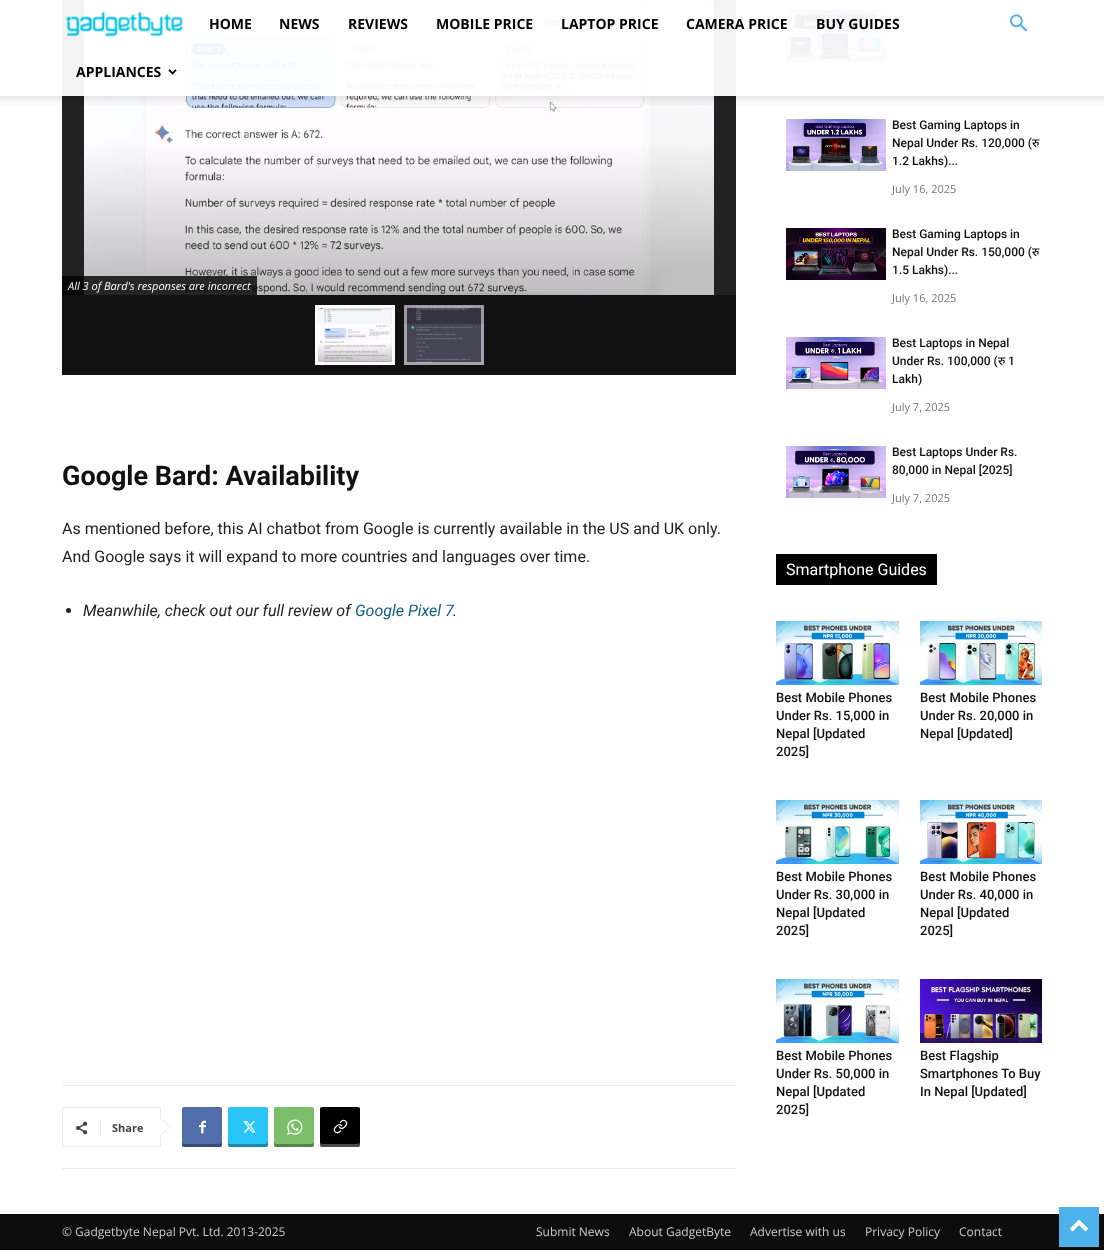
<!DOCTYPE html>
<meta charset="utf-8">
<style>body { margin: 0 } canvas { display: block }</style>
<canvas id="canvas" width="1104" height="1251"></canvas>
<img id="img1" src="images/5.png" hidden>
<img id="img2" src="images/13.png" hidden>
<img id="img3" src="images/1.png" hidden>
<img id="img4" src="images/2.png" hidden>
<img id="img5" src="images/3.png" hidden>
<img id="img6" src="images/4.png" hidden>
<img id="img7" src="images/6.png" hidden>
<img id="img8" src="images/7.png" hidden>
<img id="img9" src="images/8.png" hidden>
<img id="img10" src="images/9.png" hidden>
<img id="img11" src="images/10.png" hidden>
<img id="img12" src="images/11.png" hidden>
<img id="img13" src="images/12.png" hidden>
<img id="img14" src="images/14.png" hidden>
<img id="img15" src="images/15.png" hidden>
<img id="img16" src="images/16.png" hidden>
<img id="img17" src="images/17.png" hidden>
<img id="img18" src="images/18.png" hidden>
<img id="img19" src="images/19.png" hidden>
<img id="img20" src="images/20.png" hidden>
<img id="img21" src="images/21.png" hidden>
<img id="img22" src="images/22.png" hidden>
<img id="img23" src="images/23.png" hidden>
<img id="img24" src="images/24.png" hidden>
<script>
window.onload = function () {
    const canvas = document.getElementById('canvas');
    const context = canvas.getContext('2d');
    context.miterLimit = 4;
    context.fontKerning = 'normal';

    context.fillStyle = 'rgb(255, 255, 255)';
    context.fillRect(0, 0, 1104, 1251);
    context.fillStyle = 'rgb(34, 34, 34)';
    context.fillRect(62, 0, 674, 295);
    context.drawImage(document.getElementById('img1'), 84, 0, 630, 295);
    context.drawImage(document.getElementById('img2'), 786, 10, 100, 52);
    context.fillStyle = 'rgba(255, 255, 255, 0.95)';
    context.fillRect(62, 0, 824, 96);
    context.drawImage(document.getElementById('img3'), 66, 11, 117, 26);
    context.drawImage(document.getElementById('img4'), 168, 69, 9, 6);
    context.drawImage(document.getElementById('img5'), 1010, 14, 17, 18);
    context.drawImage(document.getElementById('img6'), 0, 96, 1104, 9);
    context.fillStyle = 'rgba(0, 0, 0, 0.8)';
    context.fillRect(62, 276, 195, 19);
    context.fillStyle = 'rgb(17, 17, 17)';
    context.fillRect(62, 295, 674, 80);
    context.drawImage(document.getElementById('img7'), 318, 308, 74, 54);
    context.strokeStyle = 'rgb(255, 255, 255)';
    context.lineWidth = 3;
    context.strokeRect(316.5, 306.5, 77, 57);
    context.drawImage(document.getElementById('img8'), 404, 305, 80, 60);
    context.strokeStyle = 'rgba(255, 255, 255, 0.5)';
    context.strokeRect(405.5, 306.5, 77, 57);
    context.fillStyle = 'rgb(34, 34, 34)';
    context.beginPath();
    context.arc(68.5, 610.5, 2.5, 0, 2 * Math.PI);
    context.fill();
    context.fillStyle = 'rgb(237, 237, 237)';
    context.fillRect(62, 1085, 674, 1);
    context.fillRect(62, 1168, 674, 1);
    context.beginPath();
    context.roundRect(62.5, 1107.5, 98, 39, 1.5);
    context.strokeStyle = 'rgb(233, 233, 233)';
    context.lineWidth = 1;
    context.stroke();
    context.fillStyle = 'rgb(233, 233, 233)';
    context.beginPath();
    context.moveTo(160, 1136);
    context.lineTo(160, 1118);
    context.lineTo(171, 1127);
    context.closePath();
    context.fill();
    context.drawImage(document.getElementById('img9'), 76, 1121, 12, 14);
    context.fillStyle = 'rgb(235, 235, 235)';
    context.fillRect(100, 1120, 1, 16);
    context.fillStyle = 'rgb(255, 255, 255)';
    context.beginPath();
    context.moveTo(160, 1135);
    context.lineTo(160, 1119);
    context.lineTo(170, 1127);
    context.closePath();
    context.fill();
    context.fillStyle = 'rgb(81, 110, 171)';
    context.beginPath();
    context.roundRect(182, 1107, 40, 40, 2);
    context.fill();
    context.save();
    context.beginPath();
    context.rect(182, 1107, 40, 40);
    context.clip();
    context.fillStyle = 'rgba(0, 0, 0, 0.31)';
    context.beginPath();
    context.moveTo(182, 1143);
    context.bezierCurveTo(182, 1149, 184, 1147, 190, 1147);
    context.lineTo(214, 1147);
    context.bezierCurveTo(221, 1147, 222, 1149, 222, 1142);
    context.lineTo(222, 1143);
    context.lineTo(219, 1144);
    context.lineTo(184, 1144);
    context.closePath();
    context.fill();
    context.restore();
    context.drawImage(document.getElementById('img10'), 199, 1120, 7, 14);
    context.fillStyle = 'rgb(41, 197, 246)';
    context.beginPath();
    context.roundRect(228, 1107, 40, 40, 2);
    context.fill();
    context.save();
    context.beginPath();
    context.rect(228, 1107, 40, 40);
    context.clip();
    context.fillStyle = 'rgba(0, 0, 0, 0.31)';
    context.beginPath();
    context.moveTo(228, 1143);
    context.bezierCurveTo(228, 1149, 230, 1147, 236, 1147);
    context.lineTo(260, 1147);
    context.bezierCurveTo(267, 1147, 268, 1149, 268, 1142);
    context.lineTo(268, 1143);
    context.lineTo(265, 1144);
    context.lineTo(230, 1144);
    context.closePath();
    context.fill();
    context.restore();
    context.drawImage(document.getElementById('img11'), 243, 1121, 13, 12);
    context.fillStyle = 'rgb(123, 191, 106)';
    context.beginPath();
    context.roundRect(274, 1107, 40, 40, 2);
    context.fill();
    context.save();
    context.beginPath();
    context.rect(274, 1107, 40, 40);
    context.clip();
    context.fillStyle = 'rgba(0, 0, 0, 0.31)';
    context.beginPath();
    context.moveTo(274, 1143);
    context.bezierCurveTo(274, 1149, 276, 1147, 282, 1147);
    context.lineTo(306, 1147);
    context.bezierCurveTo(313, 1147, 314, 1149, 314, 1142);
    context.lineTo(314, 1143);
    context.lineTo(311, 1144);
    context.lineTo(276, 1144);
    context.closePath();
    context.fill();
    context.restore();
    context.drawImage(document.getElementById('img12'), 287, 1119, 16, 16);
    context.fillStyle = 'rgb(0, 0, 0)';
    context.beginPath();
    context.roundRect(320, 1107, 40, 40, 2);
    context.fill();
    context.save();
    context.beginPath();
    context.rect(320, 1107, 40, 40);
    context.clip();
    context.fillStyle = 'rgba(255, 255, 255, 0.28)';
    context.beginPath();
    context.moveTo(320, 1143);
    context.bezierCurveTo(320, 1149, 322, 1147, 328, 1147);
    context.lineTo(352, 1147);
    context.bezierCurveTo(359, 1147, 360, 1149, 360, 1142);
    context.lineTo(360, 1143);
    context.lineTo(357, 1144);
    context.lineTo(322, 1144);
    context.closePath();
    context.fill();
    context.restore();
    context.drawImage(document.getElementById('img13'), 333, 1119, 15, 15);
    context.drawImage(document.getElementById('img14'), 786, 119, 100, 52);
    context.drawImage(document.getElementById('img15'), 786, 228, 100, 52);
    context.drawImage(document.getElementById('img16'), 786, 337, 100, 52);
    context.drawImage(document.getElementById('img17'), 786, 446, 100, 52);
    context.fillRect(776, 554, 161, 31);
    context.drawImage(document.getElementById('img18'), 776, 621, 123, 64);
    context.drawImage(document.getElementById('img19'), 920, 621, 122, 64);
    context.drawImage(document.getElementById('img20'), 776, 800, 123, 64);
    context.drawImage(document.getElementById('img21'), 920, 800, 122, 64);
    context.drawImage(document.getElementById('img22'), 776, 979, 123, 64);
    context.drawImage(document.getElementById('img23'), 920, 979, 122, 64);
    context.fillStyle = 'rgb(13, 13, 13)';
    context.fillRect(0, 1214, 1104, 36);
    context.fillStyle = 'rgb(77, 178, 236)';
    context.fillRect(1059, 1207, 40, 40);
    context.drawImage(document.getElementById('img24'), 1070, 1219, 18, 13);
    context.font = 'bold 14px Open Sans';
    context.fillStyle = 'rgb(0, 0, 0)';
    context.fillText('HOME', 209, 29);
    context.fillText('NEWS', 279, 29);
    context.fillText('REVIEWS', 348, 29);
    context.fillText('MOBILE PRICE', 436, 29);
    context.fillText('LAPTOP PRICE', 561, 29);
    context.fillText('CAMERA PRICE', 686, 29);
    context.fillText('BUY GUIDES', 816, 29);
    context.fillText('APPLIANCES', 76, 77);
    context.font = 'italic 11px Open Sans';
    context.fillStyle = 'rgb(255, 255, 255)';
    context.fillText('All 3 of Bard\'s responses are incorrect', 68, 290);
    context.font = 'bold 27px Roboto';
    context.fillStyle = 'rgb(17, 17, 17)';
    context.fillText('Google Bard: Availability', 62, 485);
    context.font = '16px Roboto';
    context.fillStyle = 'rgb(34, 34, 34)';
    context.fillText('As mentioned before, this AI chatbot from Google is currently available in the US and UK only.', 62, 534);
    context.fillText('And Google says it will expand to more countries and languages over time.', 62, 562);
    context.font = 'italic 16px Roboto';
    context.fillText('Meanwhile, check out our full review of', 83, 616);
    context.fillStyle = 'rgb(15, 93, 133)';
    context.fillText('Google Pixel 7', 355, 616);
    context.fillStyle = 'rgb(34, 34, 34)';
    context.fillText('.', 453, 616);
    context.font = 'bold 11px Open Sans';
    context.fillStyle = 'rgb(68, 68, 68)';
    context.fillText('Share', 112, 1132);
    context.font = '500 12px Roboto';
    context.fillStyle = 'rgb(17, 17, 17)';
    context.fillText('Best Gaming Laptops in', 892, 129);
    context.fillText('Nepal Under Rs. 120,000 (', 892, 147);
    context.font = '500 12px Noto Sans';
    context.fillText('रु', 1032, 147);
    context.font = '500 12px Roboto';
    context.fillText('1.2 Lakhs)...', 892, 165);
    context.font = '11px Open Sans';
    context.fillStyle = 'rgb(118, 118, 118)';
    context.fillText('July 16, 2025', 892, 193);
    context.font = '500 12px Roboto';
    context.fillStyle = 'rgb(17, 17, 17)';
    context.fillText('Best Gaming Laptops in', 892, 238);
    context.fillText('Nepal Under Rs. 150,000 (', 892, 256);
    context.font = '500 12px Noto Sans';
    context.fillText('रु', 1032, 256);
    context.font = '500 12px Roboto';
    context.fillText('1.5 Lakhs)...', 892, 274);
    context.font = '11px Open Sans';
    context.fillStyle = 'rgb(118, 118, 118)';
    context.fillText('July 16, 2025', 892, 302);
    context.font = '500 12px Roboto';
    context.fillStyle = 'rgb(17, 17, 17)';
    context.fillText('Best Laptops in Nepal', 892, 347);
    context.fillText('Under Rs. 100,000 (', 892, 365);
    context.font = '500 12px Noto Sans';
    context.fillText('रु', 998, 365);
    context.font = '500 12px Roboto';
    context.fillText('1', 1008, 365);
    context.fillText('Lakh)', 892, 383);
    context.font = '11px Open Sans';
    context.fillStyle = 'rgb(118, 118, 118)';
    context.fillText('July 7, 2025', 892, 411);
    context.font = '500 12px Roboto';
    context.fillStyle = 'rgb(17, 17, 17)';
    context.fillText('Best Laptops Under Rs.', 892, 456);
    context.fillText('80,000 in Nepal [2025]', 892, 474);
    context.font = '11px Open Sans';
    context.fillStyle = 'rgb(118, 118, 118)';
    context.fillText('July 7, 2025', 892, 502);
    context.font = '16px Roboto';
    context.fillStyle = 'rgb(255, 255, 255)';
    context.fillText('Smartphone Guides', 786, 575);
    context.font = '500 13px Roboto';
    context.fillStyle = 'rgb(17, 17, 17)';
    context.fillText('Best Mobile Phones', 776, 702);
    context.fillText('Under Rs. 15,000 in', 776, 720);
    context.fillText('Nepal [Updated', 776, 738);
    context.fillText('2025]', 776, 756);
    context.fillText('Best Mobile Phones', 920, 702);
    context.fillText('Under Rs. 20,000 in', 920, 720);
    context.fillText('Nepal [Updated]', 920, 738);
    context.fillText('Best Mobile Phones', 776, 881);
    context.fillText('Under Rs. 30,000 in', 776, 899);
    context.fillText('Nepal [Updated', 776, 917);
    context.fillText('2025]', 776, 935);
    context.fillText('Best Mobile Phones', 920, 881);
    context.fillText('Under Rs. 40,000 in', 920, 899);
    context.fillText('Nepal [Updated', 920, 917);
    context.fillText('2025]', 920, 935);
    context.fillText('Best Mobile Phones', 776, 1060);
    context.fillText('Under Rs. 50,000 in', 776, 1078);
    context.fillText('Nepal [Updated', 776, 1096);
    context.fillText('2025]', 776, 1114);
    context.fillText('Best Flagship', 920, 1060);
    context.fillText('Smartphones To Buy', 920, 1078);
    context.fillText('In Nepal [Updated]', 920, 1096);
    context.font = '12px Open Sans';
    context.fillStyle = 'rgb(204, 204, 204)';
    context.fillText('© Gadgetbyte Nepal Pvt. Ltd. 2013-2025', 62, 1236);
    context.fillText('Submit News', 536, 1236);
    context.fillText('About GadgetByte', 629, 1236);
    context.fillText('Advertise with us', 750, 1236);
    context.fillText('Privacy Policy', 865, 1236);
    context.fillText('Contact', 959, 1236);
};
</script>
